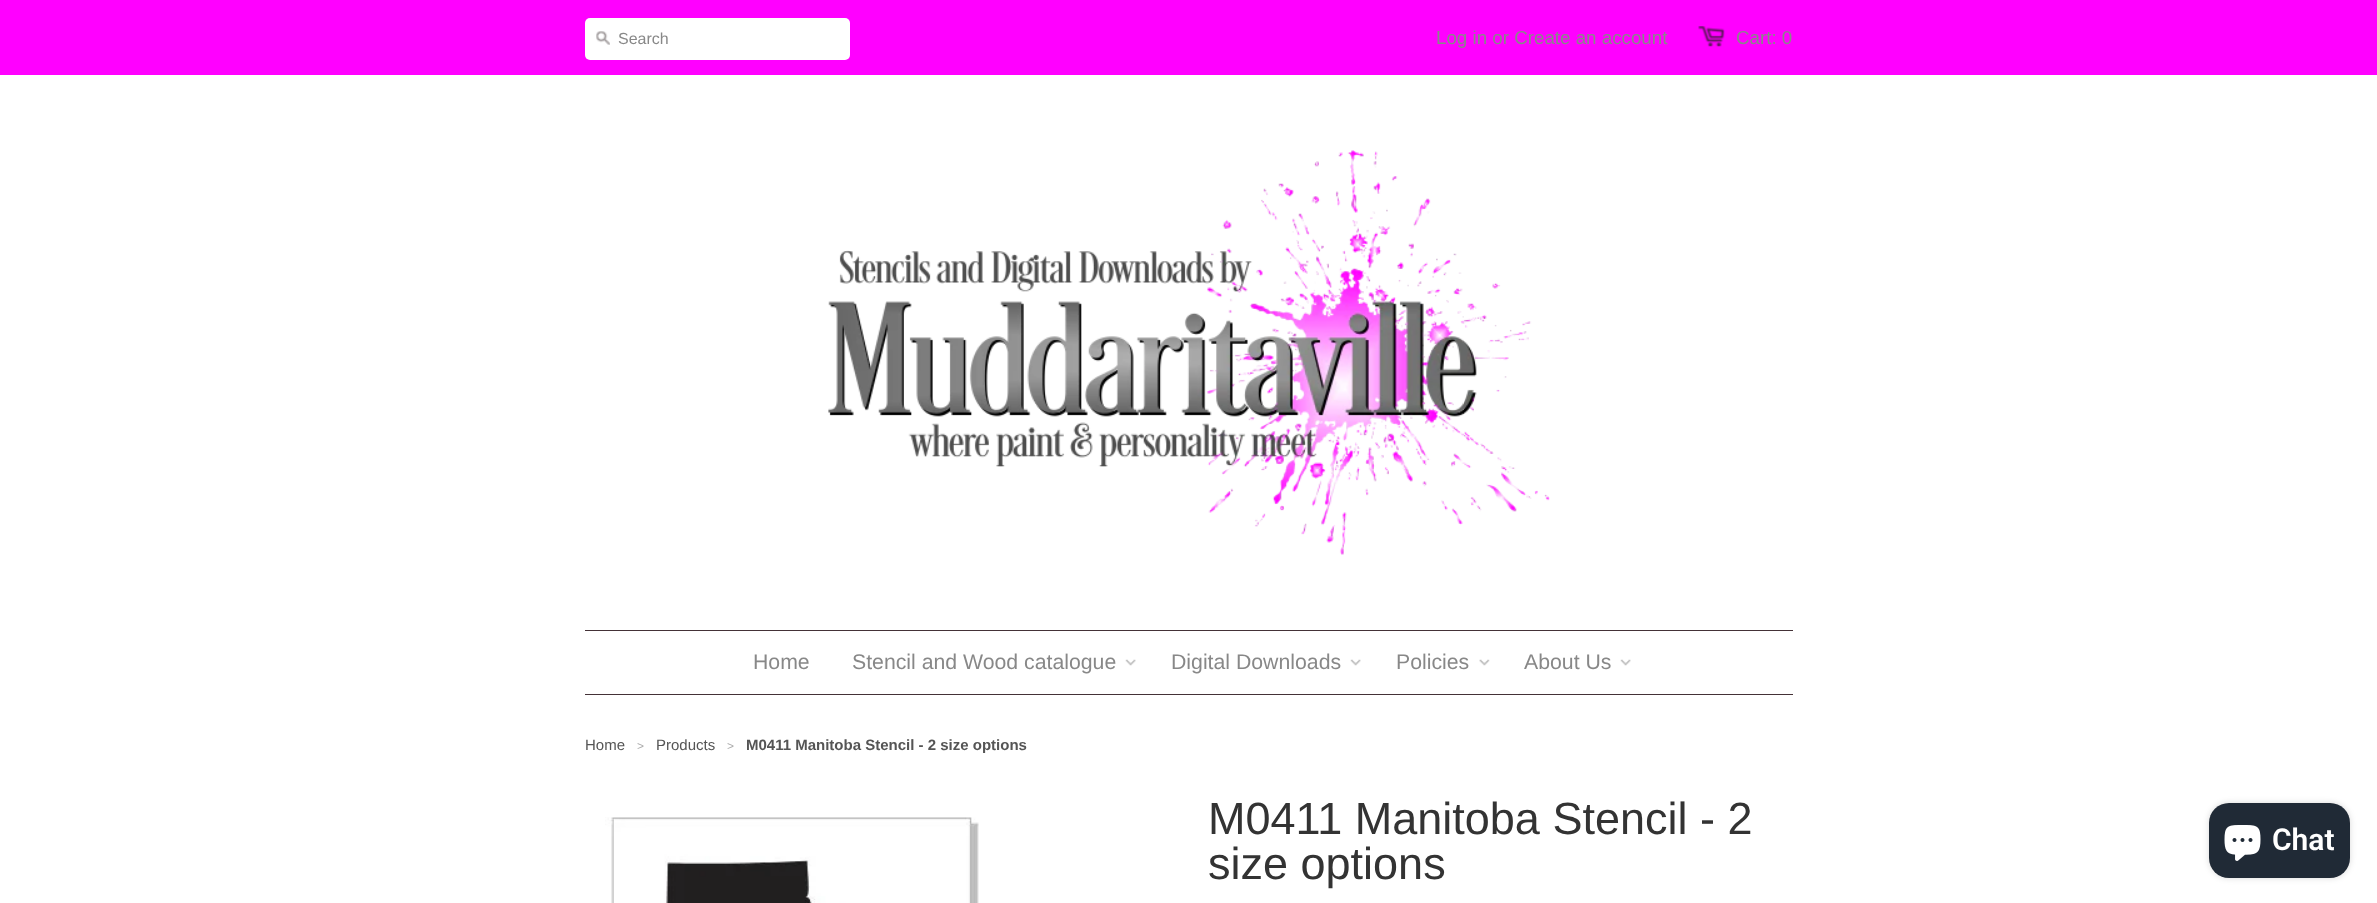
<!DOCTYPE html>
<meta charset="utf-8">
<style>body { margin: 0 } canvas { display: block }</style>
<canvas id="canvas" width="2377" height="903"></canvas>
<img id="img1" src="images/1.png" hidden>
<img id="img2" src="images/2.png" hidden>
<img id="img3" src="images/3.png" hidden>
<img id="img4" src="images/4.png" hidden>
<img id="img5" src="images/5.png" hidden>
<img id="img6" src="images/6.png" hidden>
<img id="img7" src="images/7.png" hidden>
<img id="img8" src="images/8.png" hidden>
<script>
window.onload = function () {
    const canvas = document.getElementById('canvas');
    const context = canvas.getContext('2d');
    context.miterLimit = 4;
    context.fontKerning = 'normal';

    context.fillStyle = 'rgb(255, 255, 255)';
    context.fillRect(0, 0, 2377, 903);
    context.fillStyle = 'rgb(255, 0, 255)';
    context.fillRect(0, 0, 2377, 75);
    context.fillStyle = 'rgb(255, 255, 255)';
    context.beginPath();
    context.roundRect(585, 18, 265, 42, 5);
    context.fill();
    context.drawImage(document.getElementById('img1'), 596, 31, 14, 14);
    context.drawImage(document.getElementById('img2'), 1698, 26, 27, 21);
    context.drawImage(document.getElementById('img3'), 828, 150, 722, 405);
    context.fillStyle = 'rgb(68, 50, 55)';
    context.fillRect(585, 630, 1208, 1);
    context.fillRect(585, 694, 1208, 1);
    context.drawImage(document.getElementById('img4'), 1125, 659, 11, 7);
    context.drawImage(document.getElementById('img5'), 1350, 659, 11, 7);
    context.drawImage(document.getElementById('img6'), 1479, 659, 11, 7);
    context.drawImage(document.getElementById('img4'), 1620, 659, 11, 7);
    context.drawImage(document.getElementById('img7'), 605, 817, 374, 86);
    context.fillStyle = 'rgba(0, 0, 0, 0.15)';
    context.filter = 'blur(3px)';
    context.beginPath();
    context.roundRect(2209, 803, 141, 75, 20);
    context.fill();
    context.filter = 'none';
    context.fillStyle = 'rgb(32, 42, 54)';
    context.beginPath();
    context.roundRect(2209, 803, 141, 75, 20);
    context.fill();
    context.drawImage(document.getElementById('img8'), 2224, 825, 37, 36);
    context.font = '16px Liberation Sans';
    context.fillStyle = 'rgb(136, 136, 136)';
    context.fillText('Search', 618, 44);
    context.font = '18.75px Liberation Sans';
    context.fillText('Log in or Create an account', 1436, 44);
    context.fillText('Cart: 0', 1736, 44);
    context.font = '21.25px Liberation Sans';
    context.fillText('Home', 753, 669);
    context.fillText('Stencil and Wood catalogue', 852, 669);
    context.fillText('Digital Downloads', 1171, 669);
    context.fillText('Policies', 1396, 669);
    context.fillText('About Us', 1524, 669);
    context.font = '15px Liberation Sans';
    context.fillStyle = 'rgb(85, 85, 85)';
    context.fillText('Home', 585, 750);
    context.font = '12px Liberation Sans';
    context.fillStyle = 'rgb(170, 170, 170)';
    context.fillText('>', 637, 750);
    context.font = '15px Liberation Sans';
    context.fillStyle = 'rgb(85, 85, 85)';
    context.fillText('Products', 656, 750);
    context.font = '12px Liberation Sans';
    context.fillStyle = 'rgb(170, 170, 170)';
    context.fillText('>', 727, 750);
    context.font = 'bold 15px Liberation Sans';
    context.fillStyle = 'rgb(85, 85, 85)';
    context.fillText('M0411 Manitoba Stencil - 2 size options', 746, 750);
    context.font = '45px Liberation Sans';
    context.fillStyle = 'rgb(51, 51, 51)';
    context.fillText('M0411 Manitoba Stencil - 2', 1208, 834);
    context.fillText('size options', 1208, 879);
    context.font = '600 30px Roboto';
    context.fillStyle = 'rgb(255, 255, 255)';
    context.fillText('Chat', 2272, 850);
};
</script>
